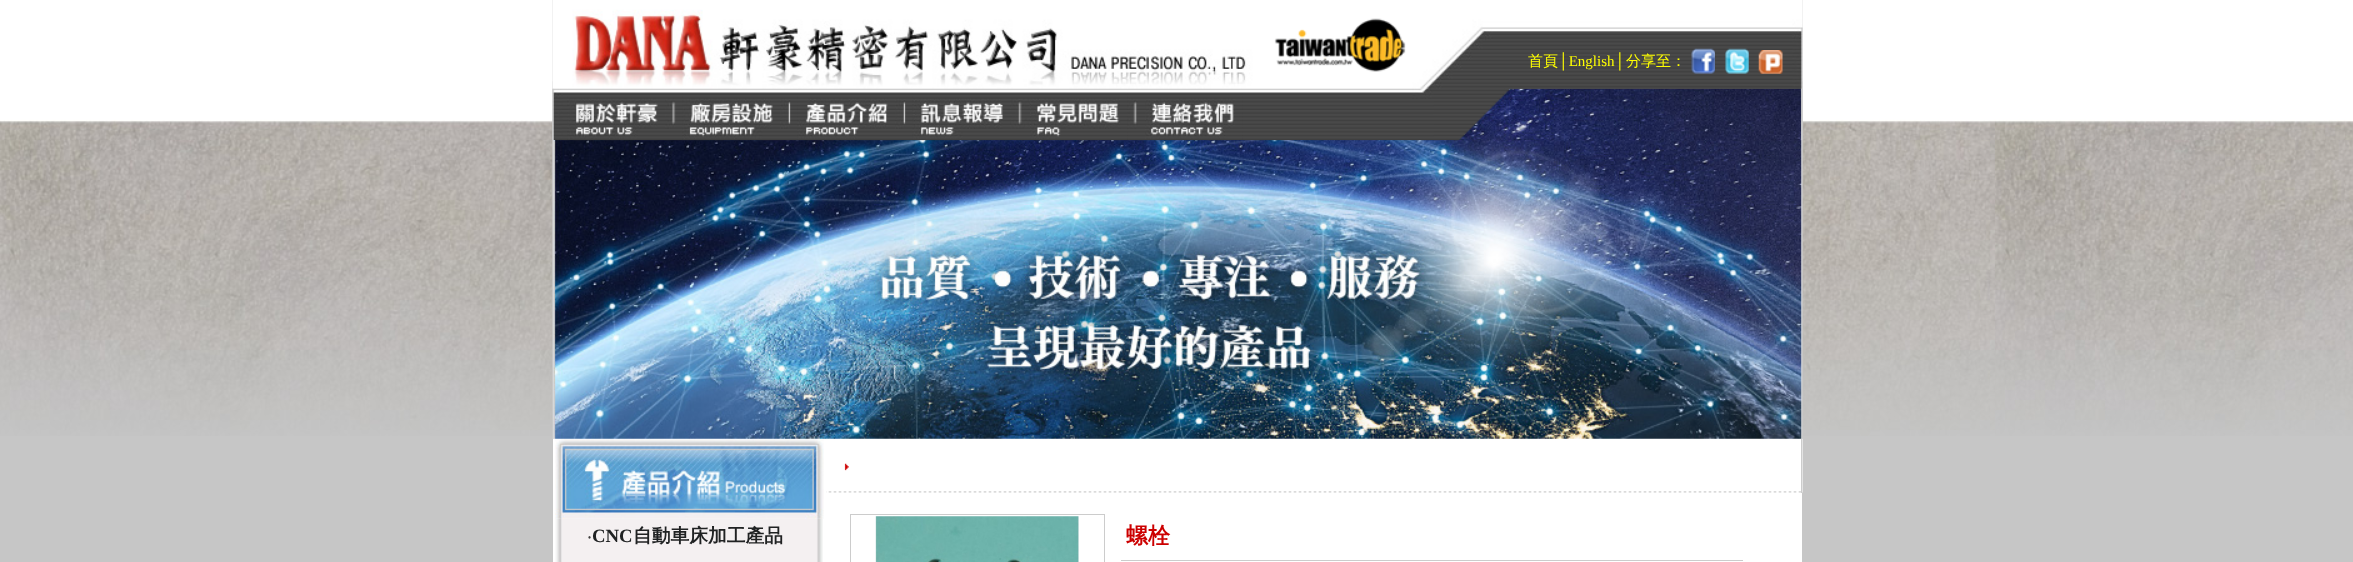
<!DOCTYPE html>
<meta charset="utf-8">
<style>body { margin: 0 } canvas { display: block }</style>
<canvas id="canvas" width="2353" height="562"></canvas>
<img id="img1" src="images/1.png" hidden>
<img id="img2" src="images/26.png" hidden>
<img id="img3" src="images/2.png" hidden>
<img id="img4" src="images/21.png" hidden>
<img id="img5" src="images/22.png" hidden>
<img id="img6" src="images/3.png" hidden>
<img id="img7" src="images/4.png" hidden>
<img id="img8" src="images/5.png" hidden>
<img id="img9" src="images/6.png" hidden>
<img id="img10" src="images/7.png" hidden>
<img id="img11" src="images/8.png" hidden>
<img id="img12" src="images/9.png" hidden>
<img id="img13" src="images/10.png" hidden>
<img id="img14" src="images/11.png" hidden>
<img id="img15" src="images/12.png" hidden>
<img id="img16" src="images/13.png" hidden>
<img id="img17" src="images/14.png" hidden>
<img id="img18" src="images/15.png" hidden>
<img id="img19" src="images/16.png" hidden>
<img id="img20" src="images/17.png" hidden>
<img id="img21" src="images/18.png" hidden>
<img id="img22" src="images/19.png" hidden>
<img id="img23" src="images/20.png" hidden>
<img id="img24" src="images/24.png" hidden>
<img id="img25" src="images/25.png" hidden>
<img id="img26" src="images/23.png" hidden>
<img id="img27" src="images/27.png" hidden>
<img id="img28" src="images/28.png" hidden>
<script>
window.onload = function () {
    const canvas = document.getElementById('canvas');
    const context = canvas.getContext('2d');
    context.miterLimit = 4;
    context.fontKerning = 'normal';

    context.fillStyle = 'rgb(198, 198, 198)';
    context.fillRect(0, 0, 2353, 562);
    context.drawImage(document.getElementById('img1'), 0, 0, 2353, 436);
    context.fillStyle = 'rgb(255, 255, 255)';
    context.fillRect(553, 438, 1249, 124);
    context.drawImage(document.getElementById('img2'), 826, 438, 977, 55);
    context.drawImage(document.getElementById('img3'), 552, 0, 1251, 439);
    context.drawImage(document.getElementById('img4'), 552, 81, 1251, 358);
    context.drawImage(document.getElementById('img5'), 553, 88, 1249, 351);
    context.drawImage(document.getElementById('img6'), 552, 0, 1251, 89);
    context.drawImage(document.getElementById('img7'), 1274, 18, 132, 54);
    context.drawImage(document.getElementById('img8'), 1691, 48, 24, 26);
    context.drawImage(document.getElementById('img9'), 1725, 48, 24, 26);
    context.drawImage(document.getElementById('img10'), 1758, 50, 25, 24);
    context.drawImage(document.getElementById('img11'), 552, 88, 16, 52);
    context.drawImage(document.getElementById('img12'), 567, 88, 98, 52);
    context.drawImage(document.getElementById('img13'), 665, 88, 18, 52);
    context.drawImage(document.getElementById('img14'), 682, 88, 98, 52);
    context.drawImage(document.getElementById('img15'), 780, 88, 18, 52);
    context.drawImage(document.getElementById('img16'), 797, 88, 98, 52);
    context.drawImage(document.getElementById('img17'), 895, 88, 18, 52);
    context.drawImage(document.getElementById('img18'), 912, 88, 98, 52);
    context.drawImage(document.getElementById('img19'), 1010, 88, 20, 52);
    context.drawImage(document.getElementById('img20'), 1030, 88, 98, 52);
    context.drawImage(document.getElementById('img21'), 1127, 88, 18, 52);
    context.drawImage(document.getElementById('img22'), 1145, 88, 98, 52);
    context.drawImage(document.getElementById('img23'), 1242, 88, 561, 52);
    context.drawImage(document.getElementById('img24'), 555, 518, 268, 44);
    context.drawImage(document.getElementById('img25'), 558, 518, 264, 1);
    context.drawImage(document.getElementById('img26'), 555, 439, 269, 80);
    context.fillStyle = 'rgb(204, 204, 204)';
    context.fillRect(1801, 439, 1, 54);
    context.drawImage(document.getElementById('img27'), 844, 463, 5, 8);
    context.strokeStyle = 'rgb(204, 204, 204)';
    context.strokeRect(850.5, 514.5, 254, 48);
    context.drawImage(document.getElementById('img28'), 875, 516, 204, 46);
    context.fillRect(1121, 560, 622, 1);
    context.font = '500 15px WenQuanYi Zen Hei';
    context.fillStyle = 'rgb(255, 255, 0)';
    context.fillText('首頁', 1528, 66);
    context.font = '15px Liberation Serif';
    context.fillText('│English│', 1558, 66);
    context.font = '500 15px WenQuanYi Zen Hei';
    context.fillText('分享至：', 1626, 66);
    context.font = '18.75px Noto Sans';
    context.fillStyle = 'rgb(61, 60, 60)';
    context.fillText('‧', 587, 542);
    context.font = 'bold 18.75px Liberation Serif';
    context.fillStyle = 'rgb(32, 34, 35)';
    context.fillText('CNC', 592, 542);
    context.font = 'bold 18.75px WenQuanYi Zen Hei';
    context.fillText('自動車床加工產品', 633, 542);
    context.font = 'bold 22px WenQuanYi Zen Hei';
    context.fillStyle = 'rgb(204, 0, 0)';
    context.fillText('螺栓', 1126, 543);
};
</script>
